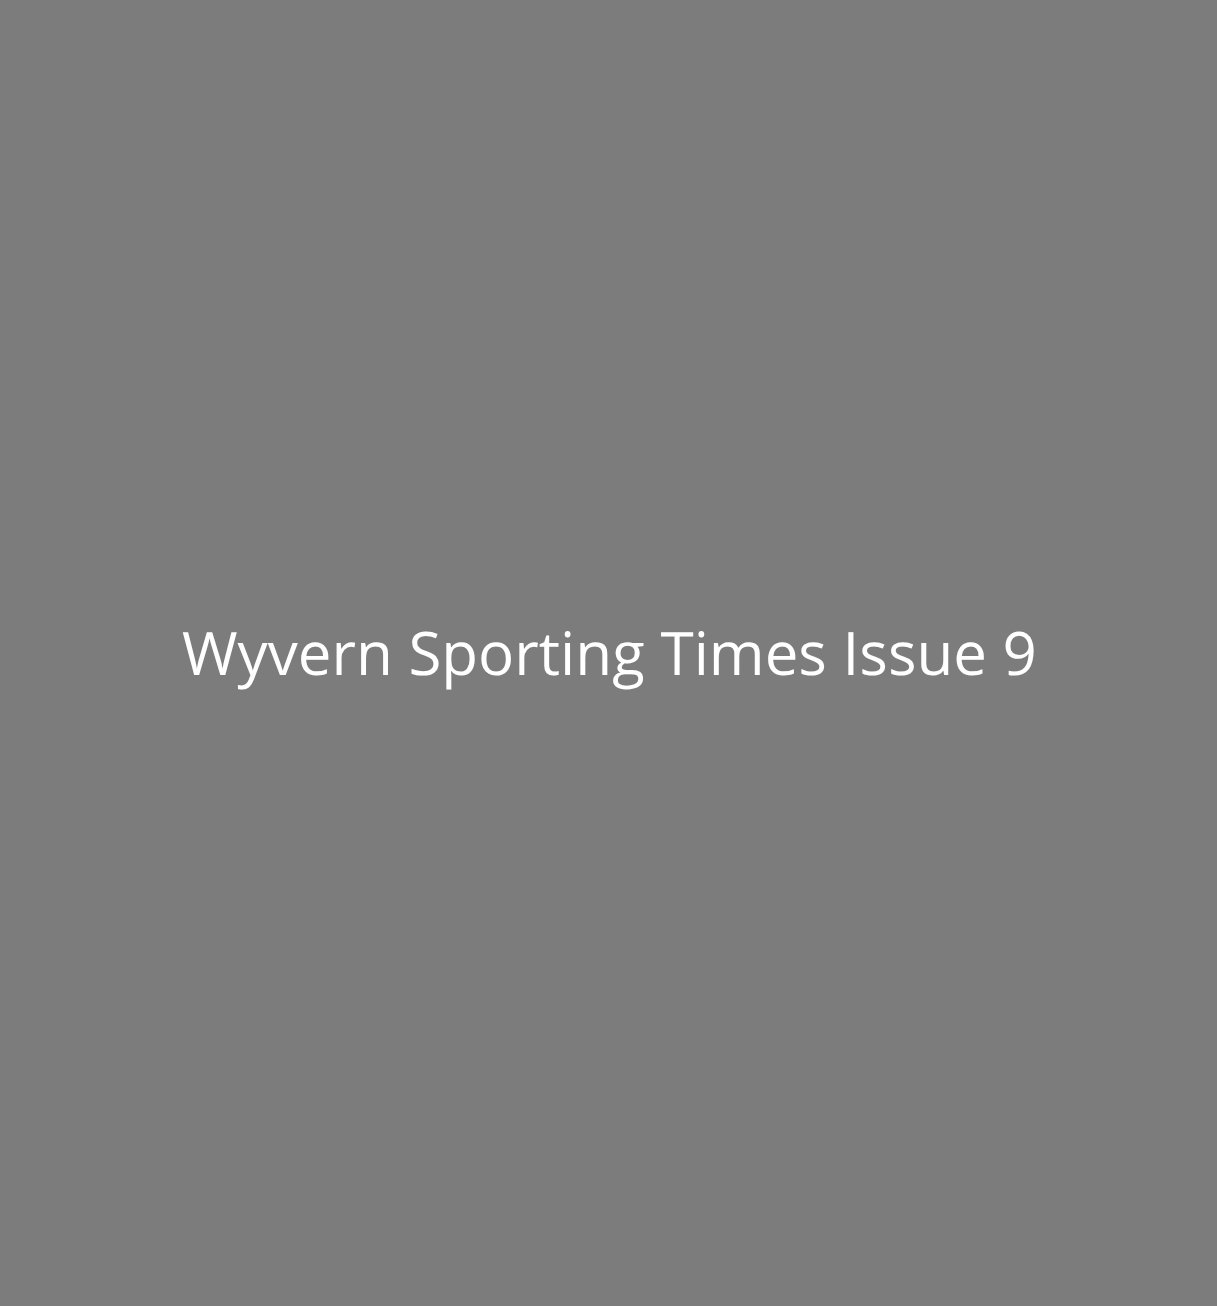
<!DOCTYPE html>
<meta charset="utf-8">
<style>body { margin: 0 } canvas { display: block }</style>
<canvas id="canvas" width="1217" height="1306"></canvas>
<script>
window.onload = function () {
    const canvas = document.getElementById('canvas');
    const context = canvas.getContext('2d');
    context.miterLimit = 4;
    context.fontKerning = 'normal';

    context.fillStyle = 'rgb(124, 124, 124)';
    context.fillRect(0, 0, 1217, 1306);
    context.font = '60px Open Sans';
    context.fillStyle = 'rgb(255, 255, 255)';
    context.fillText('Wyvern Sporting Times Issue 9', 182, 675);
};
</script>
